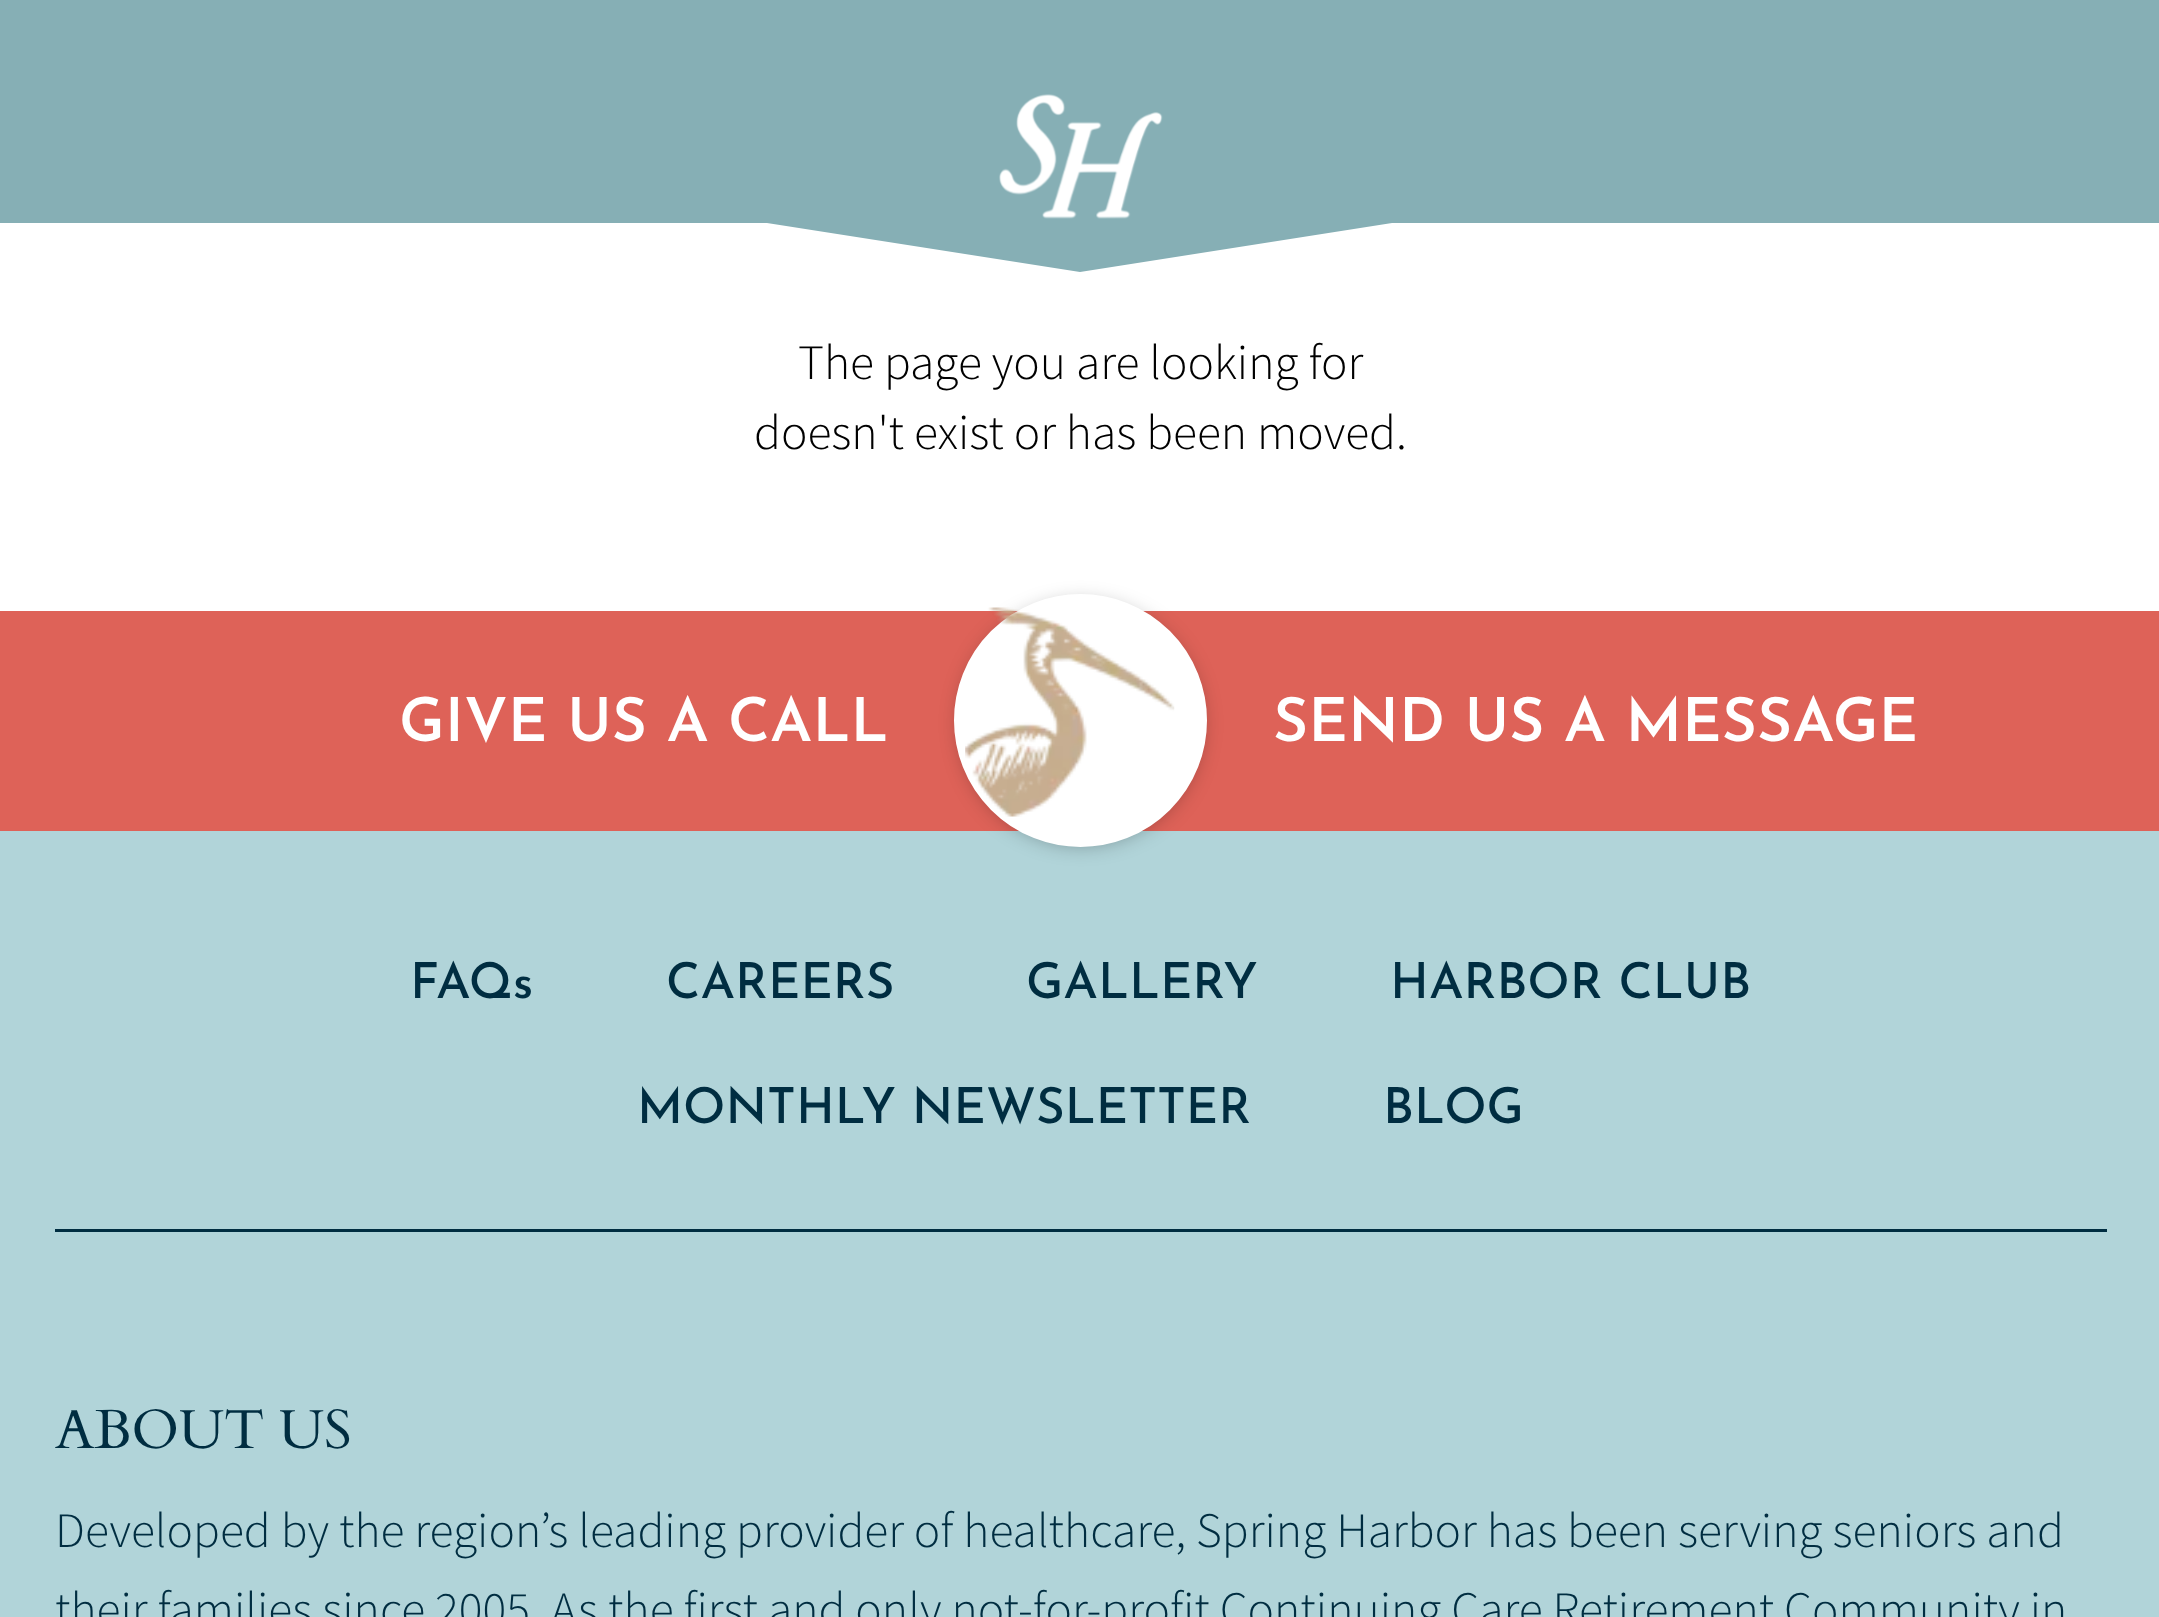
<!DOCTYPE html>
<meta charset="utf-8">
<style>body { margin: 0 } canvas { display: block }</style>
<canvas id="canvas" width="2159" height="1617"></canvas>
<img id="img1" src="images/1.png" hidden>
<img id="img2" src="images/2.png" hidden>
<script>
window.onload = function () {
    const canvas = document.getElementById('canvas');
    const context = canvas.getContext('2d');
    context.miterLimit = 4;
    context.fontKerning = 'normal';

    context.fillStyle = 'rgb(255, 255, 255)';
    context.fillRect(0, 0, 2159, 1617);
    context.fillStyle = 'rgb(134, 175, 181)';
    context.fillRect(0, 0, 2159, 223);
    context.beginPath();
    context.moveTo(767, 223);
    context.lineTo(1392, 223);
    context.lineTo(1080, 272);
    context.closePath();
    context.moveTo(767, 223);
    context.lineTo(767, -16);
    context.lineTo(1392, -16);
    context.lineTo(1392, 223);
    context.closePath();
    context.fill();
    context.drawImage(document.getElementById('img1'), 999, 94, 164, 125);
    context.fillStyle = 'rgb(222, 98, 88)';
    context.fillRect(0, 611, 1019, 220);
    context.fillRect(1142, 611, 1017, 220);
    context.fillStyle = 'rgb(177, 212, 217)';
    context.fillRect(0, 831, 2159, 786);
    context.fillStyle = 'rgba(0, 0, 0, 0.4)';
    context.filter = 'blur(11px)';
    context.beginPath();
    context.roundRect(963, 605, 236, 237, 118);
    context.fill();
    context.filter = 'none';
    context.fillStyle = 'rgb(255, 255, 255)';
    context.beginPath();
    context.arc(1080.5, 720.5, 115.5, 0, 2 * Math.PI);
    context.fill();
    context.strokeStyle = 'rgb(255, 255, 255)';
    context.lineWidth = 22;
    context.stroke();
    context.drawImage(document.getElementById('img2'), 965, 607, 210, 210);
    context.fillStyle = 'rgb(0, 45, 65)';
    context.fillRect(55, 1229, 2052, 3);
    context.font = '300 49.5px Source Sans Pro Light';
    context.fillStyle = 'rgb(0, 0, 0)';
    context.fillText('The page you are looking for', 798, 379);
    context.fillText('doesn\'t exist or has been moved.', 754, 449);
    context.font = '600 60.5px Josefin Sans';
    context.fillStyle = 'rgb(255, 255, 255)';
    context.fillText('GIVE US A CALL', 399, 741);
    context.fillText('SEND US A MESSAGE', 1273, 741);
    context.font = '500 49.5px Josefin Sans';
    context.fillStyle = 'rgb(0, 45, 65)';
    context.fillText('FAQs', 410, 998);
    context.fillText('CAREERS', 666, 998);
    context.fillText('GALLERY', 1026, 998);
    context.fillText('HARBOR CLUB', 1390, 998);
    context.fillText('MONTHLY NEWSLETTER', 637, 1123);
    context.fillText('BLOG', 1383, 1123);
    context.font = '55px Cardo';
    context.fillText('ABOUT US', 55, 1448);
    context.font = '300 49.5px Source Sans Pro Light';
    context.fillText('Developed by the region’s leading provider of healthcare, Spring Harbor has been serving seniors and', 55, 1547);
    context.fillText('their families since 2005. As the first and only not-for-profit Continuing Care Retirement Community in', 55, 1626);
};
</script>
